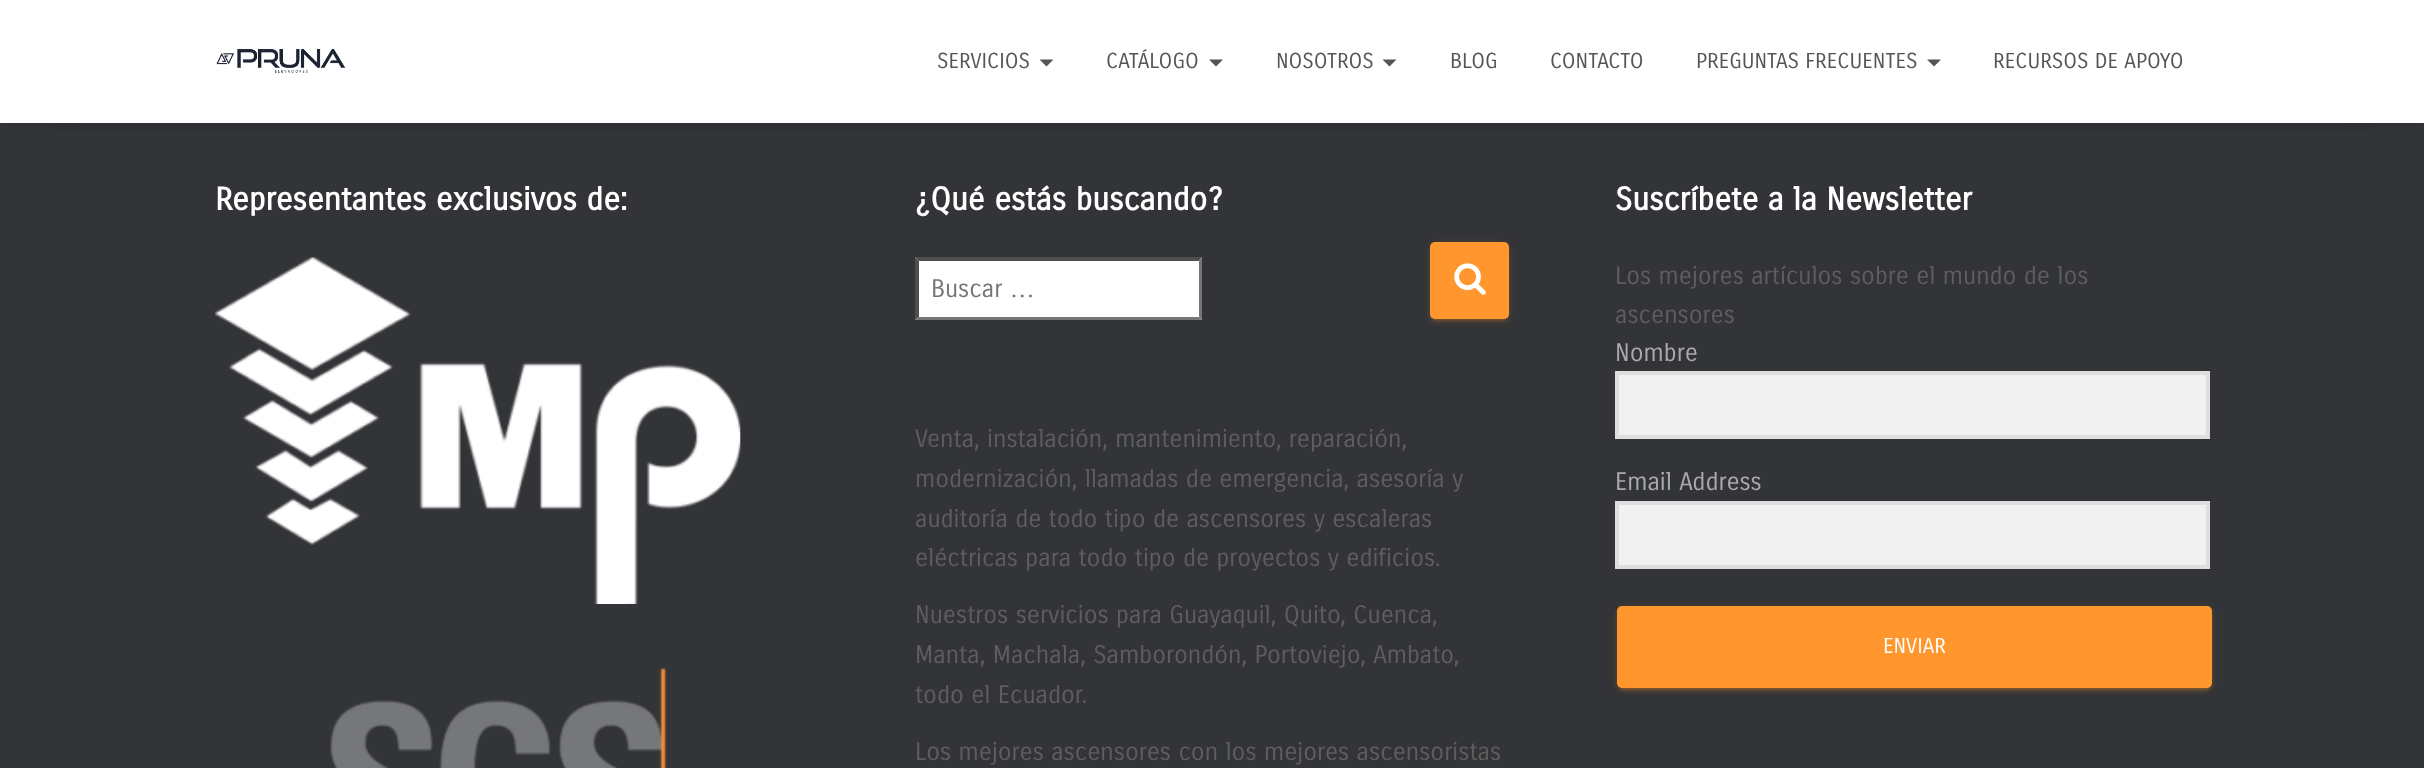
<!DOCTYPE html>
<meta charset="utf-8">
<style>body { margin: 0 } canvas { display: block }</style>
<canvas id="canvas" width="2424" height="768"></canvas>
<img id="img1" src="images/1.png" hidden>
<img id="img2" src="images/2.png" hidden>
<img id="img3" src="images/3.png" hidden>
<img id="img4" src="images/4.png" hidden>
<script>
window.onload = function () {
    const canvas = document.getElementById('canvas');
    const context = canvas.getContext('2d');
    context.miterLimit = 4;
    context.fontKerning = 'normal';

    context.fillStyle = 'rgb(50, 52, 55)';
    context.fillRect(0, 0, 2424, 768);
    context.fillStyle = 'rgba(0, 0, 0, 0.2)';
    context.filter = 'blur(9px)';
    context.beginPath();
    context.roundRect(61, -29, 2303, 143, 2);
    context.fill();
    context.filter = 'none';
    context.fillStyle = 'rgba(0, 0, 0, 0.42)';
    context.filter = 'blur(9px)';
    context.beginPath();
    context.rect(11, 12, 2404, 102);
    context.fill();
    context.filter = 'none';
    context.fillStyle = 'rgb(255, 255, 255)';
    context.fillRect(0, 0, 2424, 123);
    context.drawImage(document.getElementById('img1'), 216, 48, 129, 25);
    context.fillStyle = 'rgb(85, 85, 85)';
    context.beginPath();
    context.moveTo(1039.5, 59.5);
    context.lineTo(1053.5, 59.5);
    context.lineTo(1046.5, 66.5);
    context.closePath();
    context.fill();
    context.beginPath();
    context.moveTo(1209, 59.5);
    context.lineTo(1223, 59.5);
    context.lineTo(1216, 66.5);
    context.closePath();
    context.fill();
    context.beginPath();
    context.moveTo(1382.5, 59.5);
    context.lineTo(1396.5, 59.5);
    context.lineTo(1389.5, 66.5);
    context.closePath();
    context.fill();
    context.beginPath();
    context.moveTo(1927, 59.5);
    context.lineTo(1941, 59.5);
    context.lineTo(1934, 66.5);
    context.closePath();
    context.fill();
    context.drawImage(document.getElementById('img2'), 215, 257, 526, 347);
    context.drawImage(document.getElementById('img3'), 330, 667, 337, 101);
    context.fillStyle = 'rgb(255, 255, 255)';
    context.fillRect(915, 257, 287, 63);
    context.fillStyle = 'rgb(79, 79, 79)';
    context.beginPath();
    context.moveTo(915, 257);
    context.lineTo(1202, 257);
    context.lineTo(1199, 261);
    context.lineTo(919, 261);
    context.closePath();
    context.fill();
    context.fillStyle = 'rgb(118, 118, 118)';
    context.beginPath();
    context.moveTo(1202, 257);
    context.lineTo(1202, 320);
    context.lineTo(1199, 317);
    context.lineTo(1199, 261);
    context.closePath();
    context.fill();
    context.beginPath();
    context.moveTo(1202, 320);
    context.lineTo(915, 320);
    context.lineTo(919, 317);
    context.lineTo(1199, 317);
    context.closePath();
    context.fill();
    context.fillStyle = 'rgb(79, 79, 79)';
    context.beginPath();
    context.moveTo(915, 320);
    context.lineTo(915, 257);
    context.lineTo(919, 261);
    context.lineTo(919, 317);
    context.closePath();
    context.fill();
    context.fillStyle = 'rgba(255, 151, 46, 0.12)';
    context.filter = 'blur(4.5px)';
    context.beginPath();
    context.roundRect(1430, 243, 79, 77, 5);
    context.fill();
    context.filter = 'none';
    context.fillStyle = 'rgba(255, 151, 46, 0.2)';
    context.filter = 'blur(1px)';
    context.beginPath();
    context.roundRect(1433, 250, 72, 70, 2);
    context.fill();
    context.filter = 'none';
    context.fillStyle = 'rgba(255, 151, 46, 0.14)';
    context.filter = 'blur(2px)';
    context.beginPath();
    context.roundRect(1430, 245, 79, 77, 5);
    context.fill();
    context.filter = 'none';
    context.fillStyle = 'rgb(255, 151, 46)';
    context.beginPath();
    context.roundRect(1430, 242, 79, 77, 5);
    context.fill();
    context.drawImage(document.getElementById('img4'), 1454, 263, 32, 32);
    context.fillStyle = 'rgb(241, 241, 241)';
    context.beginPath();
    context.rect(1617, 373, 591, 64);
    context.fill();
    context.strokeStyle = 'rgb(222, 222, 222)';
    context.lineWidth = 4;
    context.stroke();
    context.beginPath();
    context.rect(1617, 503, 591, 64);
    context.fill();
    context.stroke();
    context.fillStyle = 'rgba(255, 151, 46, 0.12)';
    context.filter = 'blur(4.5px)';
    context.beginPath();
    context.roundRect(1617, 607, 595, 83, 5);
    context.fill();
    context.filter = 'none';
    context.fillStyle = 'rgba(255, 151, 46, 0.2)';
    context.filter = 'blur(1px)';
    context.beginPath();
    context.roundRect(1621, 614, 588, 76, 2);
    context.fill();
    context.filter = 'none';
    context.fillStyle = 'rgba(255, 151, 46, 0.14)';
    context.filter = 'blur(2px)';
    context.beginPath();
    context.roundRect(1617, 609, 595, 82, 5);
    context.fill();
    context.filter = 'none';
    context.fillStyle = 'rgb(255, 151, 46)';
    context.beginPath();
    context.roundRect(1617, 606, 595, 82, 5);
    context.fill();
    context.font = '21px Carrois Gothic';
    context.fillStyle = 'rgb(85, 85, 85)';
    context.fillText('SERVICIOS', 937, 68);
    context.fillText('CATÁLOGO', 1106, 68);
    context.fillText('NOSOTROS', 1276, 68);
    context.fillText('BLOG', 1450, 68);
    context.fillText('CONTACTO', 1550, 68);
    context.fillText('PREGUNTAS FRECUENTES', 1696, 68);
    context.fillText('RECURSOS DE APOYO', 1993, 68);
    context.font = 'bold 31.5px Carrois Gothic';
    context.fillStyle = 'rgb(255, 255, 255)';
    context.fillText('Representantes exclusivos de:', 215, 210);
    context.fillText('¿Qué estás buscando?', 915, 210);
    context.font = '24.5px Carrois Gothic';
    context.fillStyle = 'rgb(117, 117, 117)';
    context.fillText('Buscar', 931, 297);
    context.font = '24.5px Liberation Serif';
    context.fillText('…', 1010, 297);
    context.font = '24.5px Carrois Gothic';
    context.fillStyle = 'rgb(94, 94, 94)';
    context.fillText('Venta, instalación, mantenimiento, reparación,', 915, 447);
    context.fillText('modernización, llamadas de emergencia, asesoría y', 915, 487);
    context.fillText('auditoría de todo tipo de ascensores y escaleras', 915, 527);
    context.fillText('eléctricas para todo tipo de proyectos y edificios.', 915, 566);
    context.fillText('Nuestros servicios para Guayaquil, Quito, Cuenca,', 915, 623);
    context.fillText('Manta, Machala, Samborondón, Portoviejo, Ambato,', 915, 663);
    context.fillText('todo el Ecuador.', 915, 703);
    context.fillText('Los mejores ascensores con los mejores ascensoristas', 915, 760);
    context.font = 'bold 31.5px Carrois Gothic';
    context.fillStyle = 'rgb(255, 255, 255)';
    context.fillText('Suscríbete a la Newsletter', 1615, 210);
    context.font = '24.5px Carrois Gothic';
    context.fillStyle = 'rgb(94, 94, 94)';
    context.fillText('Los mejores artículos sobre el mundo de los', 1615, 284);
    context.fillText('ascensores', 1615, 323);
    context.fillStyle = 'rgb(170, 170, 170)';
    context.fillText('Nombre', 1615, 361);
    context.fillText('Email Address', 1615, 490);
    context.font = '21px Carrois Gothic';
    context.fillStyle = 'rgb(255, 255, 255)';
    context.fillText('ENVIAR', 1883, 653);
};
</script>
